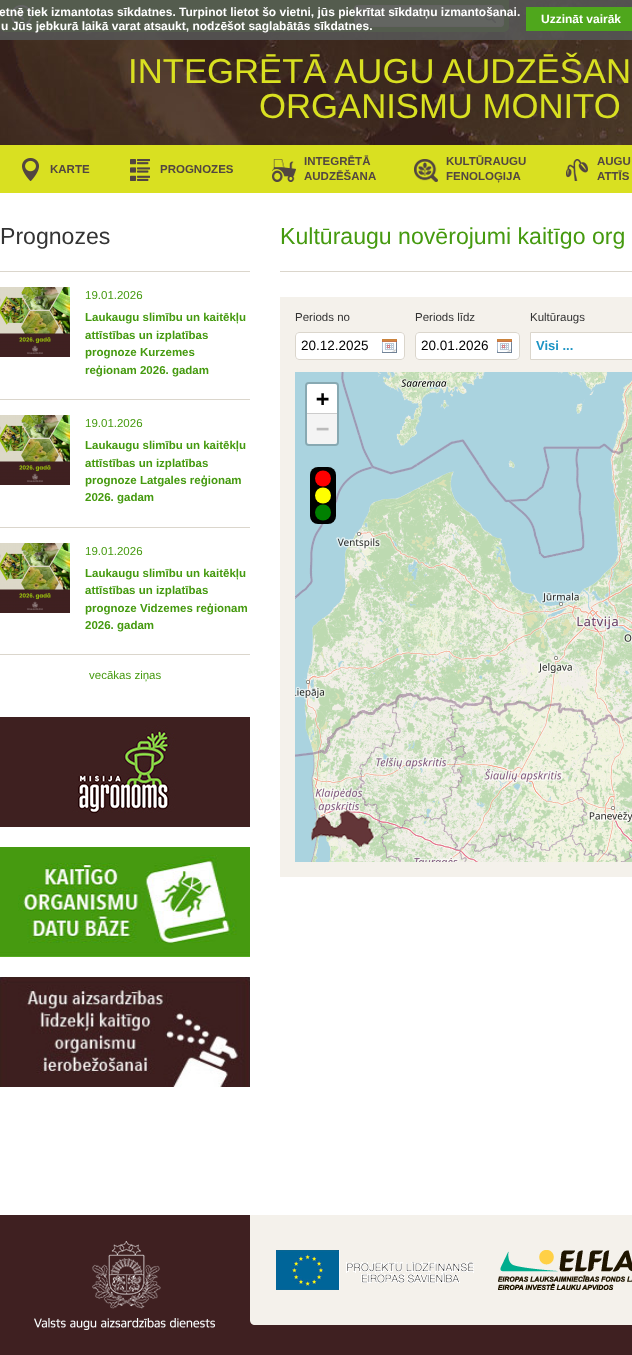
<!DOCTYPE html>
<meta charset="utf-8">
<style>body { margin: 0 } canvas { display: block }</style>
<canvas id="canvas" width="632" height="1355"></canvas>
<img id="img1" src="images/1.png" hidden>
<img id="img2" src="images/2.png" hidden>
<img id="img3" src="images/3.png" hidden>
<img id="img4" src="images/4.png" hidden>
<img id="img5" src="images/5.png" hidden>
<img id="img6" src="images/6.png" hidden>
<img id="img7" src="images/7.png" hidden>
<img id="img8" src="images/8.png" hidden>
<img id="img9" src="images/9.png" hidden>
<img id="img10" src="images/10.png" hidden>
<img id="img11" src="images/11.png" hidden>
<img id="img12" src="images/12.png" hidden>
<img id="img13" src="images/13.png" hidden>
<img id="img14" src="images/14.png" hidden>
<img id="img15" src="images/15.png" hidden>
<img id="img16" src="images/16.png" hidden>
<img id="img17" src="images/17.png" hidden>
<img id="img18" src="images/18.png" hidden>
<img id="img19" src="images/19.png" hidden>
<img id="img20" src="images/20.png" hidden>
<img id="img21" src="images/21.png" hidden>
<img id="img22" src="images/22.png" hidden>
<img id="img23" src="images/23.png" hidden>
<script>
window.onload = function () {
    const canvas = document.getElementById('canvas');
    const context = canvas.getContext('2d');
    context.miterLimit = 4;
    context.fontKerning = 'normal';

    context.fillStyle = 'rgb(255, 255, 255)';
    context.fillRect(0, 0, 632, 1355);
    context.drawImage(document.getElementById('img1'), 0, 0, 632, 145);
    context.fillStyle = 'rgb(69, 154, 15)';
    context.beginPath();
    context.roundRect(0, 0, 509, 32, [0, 0, 5, 5]);
    context.fill();
    context.drawImage(document.getElementById('img2'), 11, 5, 21, 21);
    context.fillStyle = 'rgb(217, 237, 202)';
    context.beginPath();
    context.roundRect(354, 5, 150, 22, 4);
    context.fill();
    context.drawImage(document.getElementById('img3'), 485, 12, 11, 11);
    context.beginPath();
    context.roundRect(354.5, 5.5, 149, 21, 3.5);
    context.strokeStyle = 'rgb(219, 214, 204)';
    context.stroke();
    context.fillStyle = 'rgba(85, 85, 85, 0.9)';
    context.fillRect(0, 0, 632, 40);
    context.fillStyle = 'rgb(79, 167, 28)';
    context.fillRect(526, 7, 106, 24);
    context.fillStyle = 'rgb(217, 224, 33)';
    context.fillRect(0, 145, 632, 48);
    context.drawImage(document.getElementById('img4'), 22, 158, 17, 23);
    context.drawImage(document.getElementById('img5'), 130, 159, 20, 22);
    context.drawImage(document.getElementById('img6'), 272, 159, 24, 23);
    context.drawImage(document.getElementById('img7'), 414, 159, 24, 23);
    context.drawImage(document.getElementById('img8'), 566, 159, 22, 22);
    context.fillStyle = 'rgb(219, 214, 204)';
    context.fillRect(0, 271, 250, 1);
    context.fillRect(0, 399, 250, 1);
    context.drawImage(document.getElementById('img9'), 0, 287, 70, 70);
    context.fillRect(0, 527, 250, 1);
    context.drawImage(document.getElementById('img9'), 0, 415, 70, 70);
    context.fillRect(0, 654, 250, 1);
    context.drawImage(document.getElementById('img9'), 0, 543, 70, 70);
    context.drawImage(document.getElementById('img10'), 0, 717, 250, 110);
    context.drawImage(document.getElementById('img11'), 0, 847, 250, 110);
    context.drawImage(document.getElementById('img12'), 0, 977, 250, 110);
    context.fillRect(280, 271, 352, 1);
    context.fillStyle = 'rgb(244, 241, 235)';
    context.fillRect(280, 297, 352, 580);
    context.fillStyle = 'rgb(255, 255, 255)';
    context.beginPath();
    context.roundRect(295, 332, 110, 28, 4);
    context.fill();
    context.drawImage(document.getElementById('img13'), 382, 339, 15, 14);
    context.beginPath();
    context.roundRect(295.5, 332.5, 109, 27, 3.5);
    context.stroke();
    context.beginPath();
    context.roundRect(415, 332, 105, 28, 4);
    context.fill();
    context.drawImage(document.getElementById('img13'), 497, 339, 15, 14);
    context.beginPath();
    context.roundRect(415.5, 332.5, 104, 27, 3.5);
    context.stroke();
    context.beginPath();
    context.rect(530.5, 332.5, 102, 27);
    context.fill();
    context.stroke();
    context.drawImage(document.getElementById('img14'), 295, 372, 149, 173);
    context.drawImage(document.getElementById('img15'), 444, 372, 188, 173);
    context.drawImage(document.getElementById('img16'), 295, 545, 149, 256);
    context.drawImage(document.getElementById('img17'), 444, 545, 188, 256);
    context.drawImage(document.getElementById('img18'), 295, 801, 149, 61);
    context.drawImage(document.getElementById('img19'), 444, 801, 188, 61);
    context.beginPath();
    context.roundRect(306, 383, 32, 62, 3);
    context.strokeStyle = 'rgb(136, 169, 178)';
    context.lineWidth = 2;
    context.stroke();
    context.beginPath();
    context.roundRect(307, 384, 30, 30, [2, 2, 0, 0]);
    context.fill();
    context.fillStyle = 'rgb(204, 204, 204)';
    context.fillRect(307, 413, 30, 1);
    context.fillStyle = 'rgb(244, 244, 244)';
    context.beginPath();
    context.roundRect(307, 414, 30, 30, [0, 0, 2, 2]);
    context.fill();
    context.fillStyle = 'rgb(0, 0, 0)';
    context.beginPath();
    context.roundRect(310, 467, 26, 57, 8);
    context.fill();
    context.fillStyle = 'rgb(0, 128, 0)';
    context.beginPath();
    context.arc(323, 512.5, 8, 0, 2 * Math.PI);
    context.fill();
    context.fillStyle = 'rgb(255, 255, 0)';
    context.beginPath();
    context.arc(323, 495.5, 8, 0, 2 * Math.PI);
    context.fill();
    context.fillStyle = 'rgb(255, 0, 0)';
    context.beginPath();
    context.arc(323, 478.5, 8, 0, 2 * Math.PI);
    context.fill();
    context.drawImage(document.getElementById('img20'), 311, 810, 63, 37);
    context.fillStyle = 'rgb(63, 32, 33)';
    context.fillRect(0, 1215, 632, 140);
    context.drawImage(document.getElementById('img21'), 34, 1241, 181, 89);
    context.fillStyle = 'rgb(244, 241, 235)';
    context.beginPath();
    context.moveTo(250, 1215);
    context.lineTo(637, 1215);
    context.lineTo(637, 1325);
    context.lineTo(255, 1325);
    context.bezierCurveTo(252, 1325, 250, 1323, 250, 1320);
    context.closePath();
    context.fill();
    context.drawImage(document.getElementById('img22'), 276, 1250, 198, 40);
    context.drawImage(document.getElementById('img23'), 498, 1250, 134, 40);
    context.font = 'bold 12px Liberation Sans';
    context.fillStyle = 'rgb(255, 255, 255)';
    context.fillText('etnē tiek izmantotas sīkdatnes. Turpinot lietot šo vietni, jūs piekrītat sīkdatņu izmantošanai.', -1, 16);
    context.fillText('u Jūs jebkurā laikā varat atsaukt, nodzēšot saglabātās sīkdatnes.', 1, 30);
    context.fillText('Uzzināt vairāk', 541, 23);
    context.font = '34.7px Liberation Sans';
    context.fillStyle = 'rgb(217, 224, 33)';
    context.fillText('INTEGRĒTĀ AUGU AUDZĒŠAN', 128, 83);
    context.fillText('ORGANISMU MONITO', 259, 118);
    context.font = 'bold 11.5px Liberation Sans';
    context.fillStyle = 'rgb(83, 71, 65)';
    context.fillText('KARTE', 50, 173);
    context.fillText('PROGNOZES', 160, 173);
    context.fillText('INTEGRĒTĀ', 304, 165);
    context.fillText('AUDZĒŠANA', 304, 180);
    context.fillText('KULTŪRAUGU', 446, 165);
    context.fillText('FENOLOĢIJA', 446, 180);
    context.fillText('AUGU', 597, 165);
    context.fillText('ATTĪS', 597, 180);
    context.font = '23.1px Liberation Sans';
    context.fillStyle = 'rgb(51, 51, 51)';
    context.fillText('Prognozes', 0, 244);
    context.font = '11.5px Liberation Sans';
    context.fillStyle = 'rgb(69, 154, 15)';
    context.fillText('19.01.2026', 85, 299);
    context.font = 'bold 11.5px Liberation Sans';
    context.fillText('Laukaugu slimību un kaitēkļu', 85, 321);
    context.fillText('attīstības un izplatības', 85, 339);
    context.fillText('prognoze Kurzemes', 85, 356);
    context.fillText('reģionam 2026. gadam', 85, 374);
    context.font = '11.5px Liberation Sans';
    context.fillText('19.01.2026', 85, 427);
    context.font = 'bold 11.5px Liberation Sans';
    context.fillText('Laukaugu slimību un kaitēkļu', 85, 449);
    context.fillText('attīstības un izplatības', 85, 467);
    context.fillText('prognoze Latgales reģionam', 85, 484);
    context.fillText('2026. gadam', 85, 501);
    context.font = '11.5px Liberation Sans';
    context.fillText('19.01.2026', 85, 555);
    context.font = 'bold 11.5px Liberation Sans';
    context.fillText('Laukaugu slimību un kaitēkļu', 85, 577);
    context.fillText('attīstības un izplatības', 85, 594);
    context.fillText('prognoze Vidzemes reģionam', 85, 612);
    context.fillText('2026. gadam', 85, 629);
    context.font = '11.5px Liberation Sans';
    context.fillText('vecākas ziņas', 89, 679);
    context.font = '23.1px Liberation Sans';
    context.fillText('Kultūraugu novērojumi kaitīgo org', 280, 244);
    context.font = '11.5px Liberation Sans';
    context.fillStyle = 'rgb(51, 51, 51)';
    context.fillText('Periods no', 295, 321);
    context.fillText('Periods līdz', 415, 321);
    context.fillText('Kultūraugs', 530, 321);
    context.font = '13.5px Liberation Sans';
    context.fillStyle = 'rgb(0, 0, 0)';
    context.fillText('20.12.2025', 301, 350);
    context.fillText('20.01.2026', 421, 350);
    context.font = 'bold 13px Liberation Sans';
    context.fillStyle = 'rgb(28, 148, 196)';
    context.fillText('Visi ...', 536, 350);
    context.font = 'bold 22px DejaVu Sans Mono';
    context.fillStyle = 'rgb(0, 0, 0)';
    context.fillText('+', 316, 406);
    context.fillStyle = 'rgb(187, 187, 187)';
    context.fillText('−', 316, 436);
};
</script>
